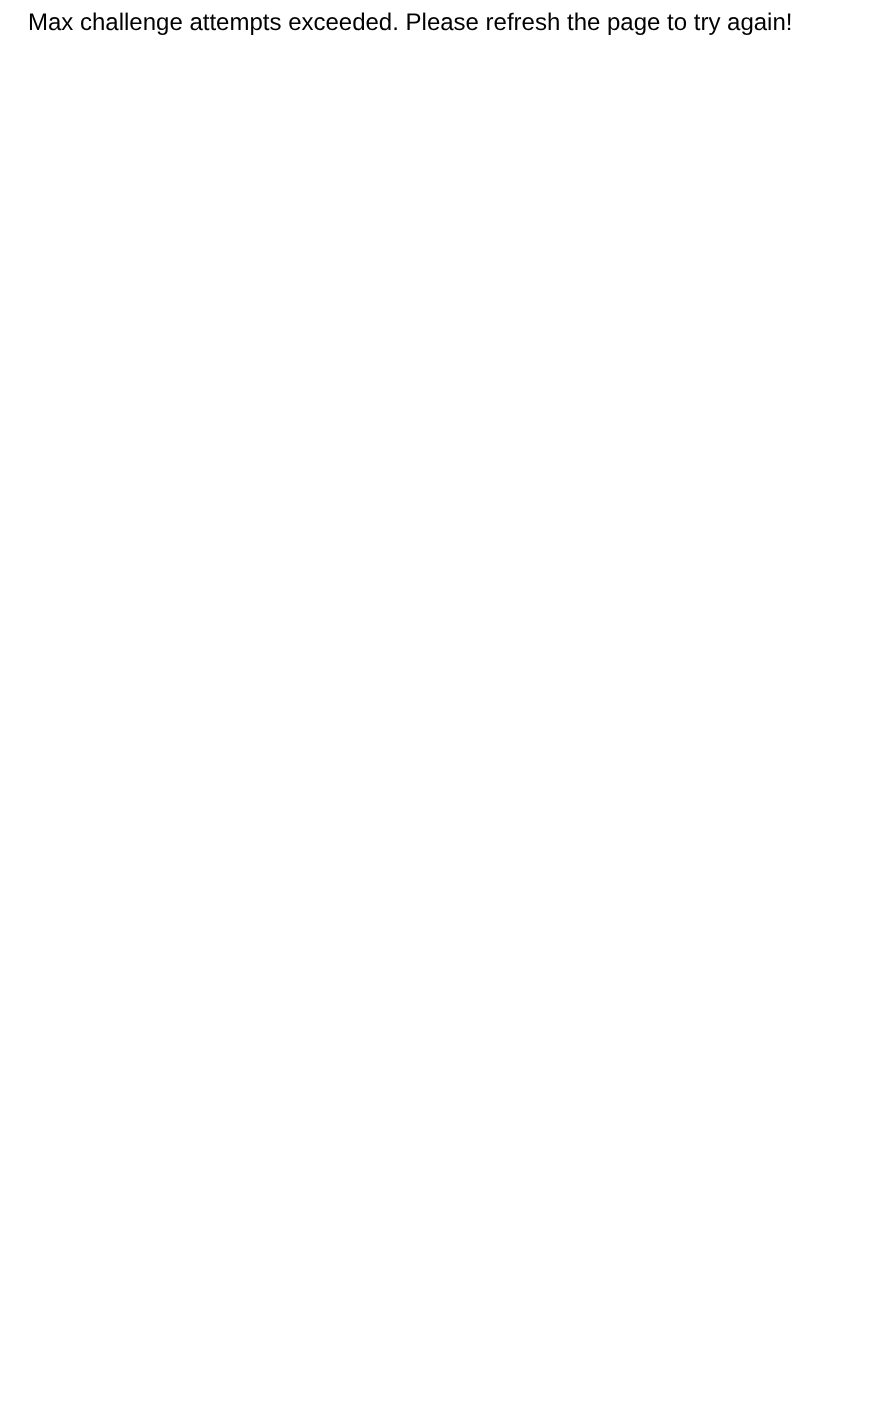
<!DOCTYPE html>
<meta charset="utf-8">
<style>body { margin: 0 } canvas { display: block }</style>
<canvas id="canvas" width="881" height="1406"></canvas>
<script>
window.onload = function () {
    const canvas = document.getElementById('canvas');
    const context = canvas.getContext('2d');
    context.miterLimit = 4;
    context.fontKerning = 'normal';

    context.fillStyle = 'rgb(255, 255, 255)';
    context.fillRect(0, 0, 881, 1406);
    context.font = '24px Liberation Sans';
    context.fillStyle = 'rgb(0, 0, 0)';
    context.fillText('Max challenge attempts exceeded. Please refresh the page to try again!', 28, 30);
};
</script>
